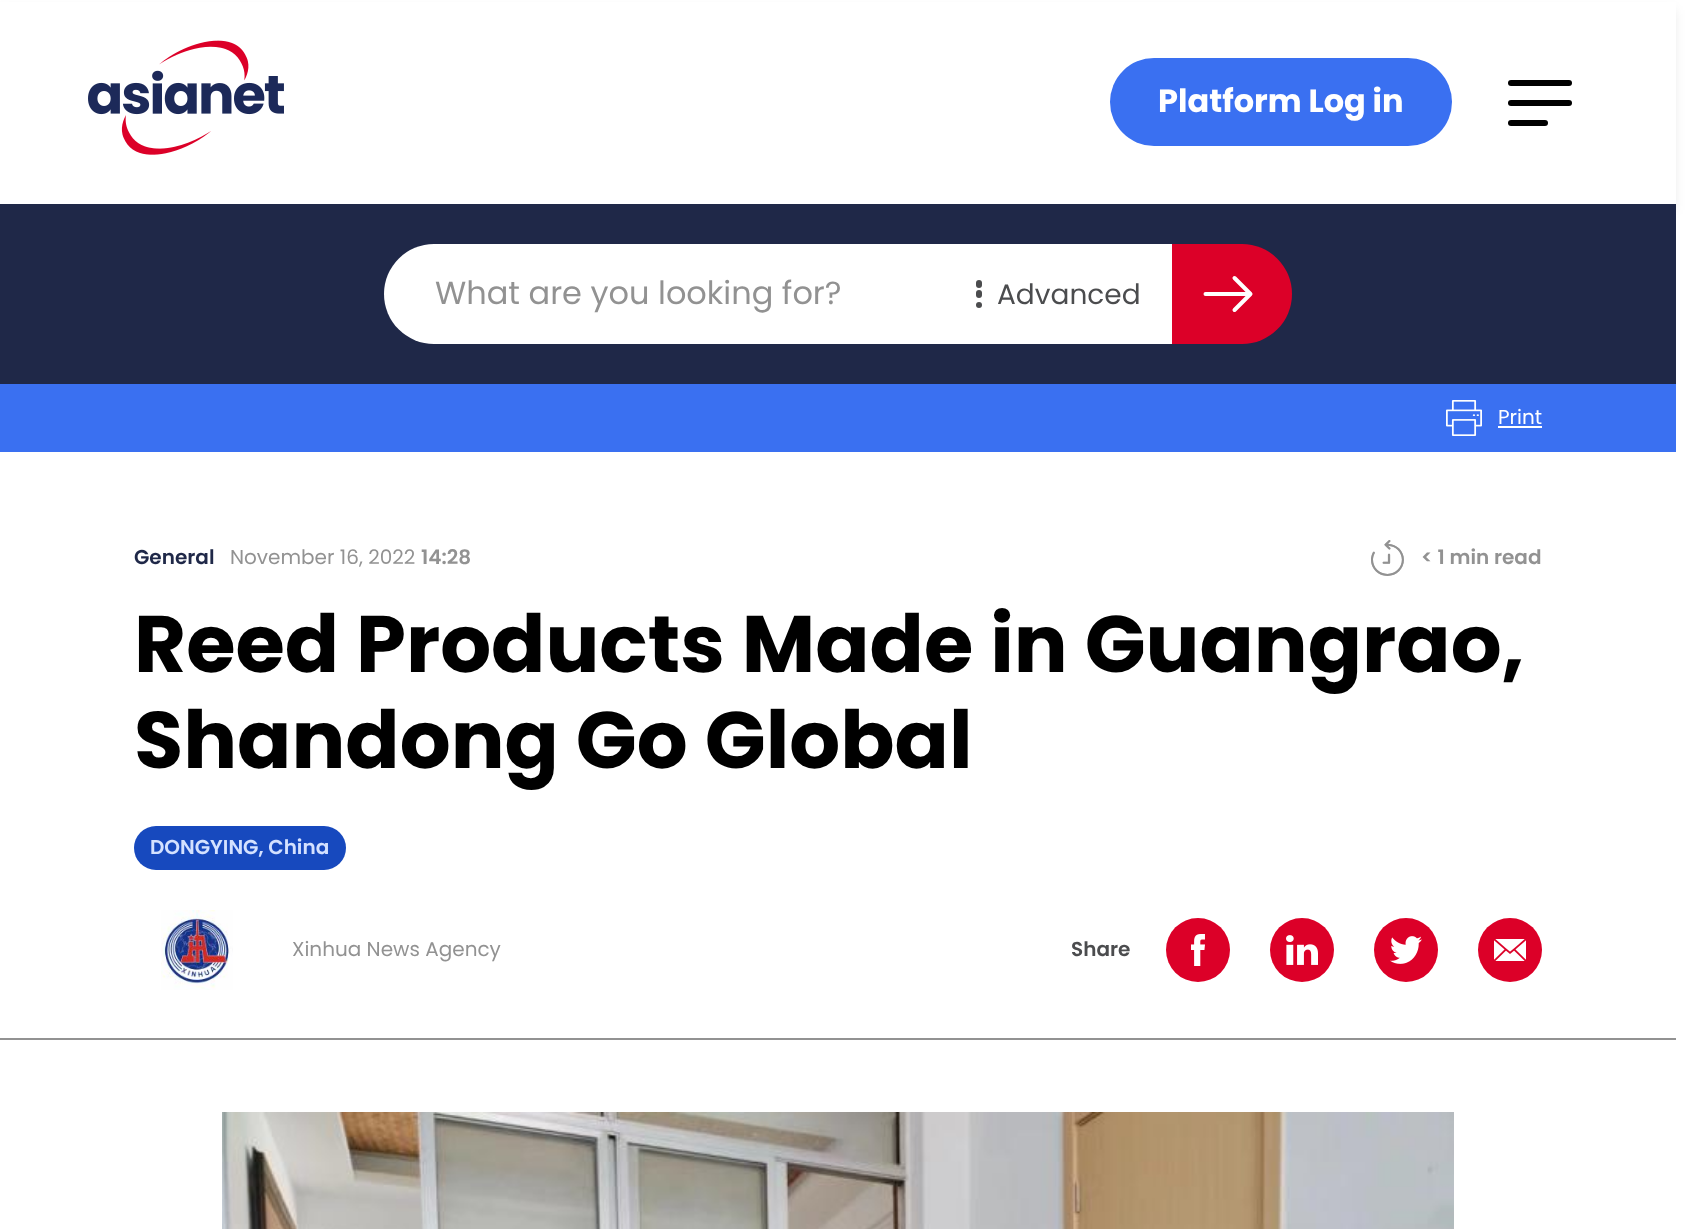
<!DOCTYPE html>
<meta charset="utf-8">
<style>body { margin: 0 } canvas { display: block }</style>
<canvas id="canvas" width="1705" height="1229"></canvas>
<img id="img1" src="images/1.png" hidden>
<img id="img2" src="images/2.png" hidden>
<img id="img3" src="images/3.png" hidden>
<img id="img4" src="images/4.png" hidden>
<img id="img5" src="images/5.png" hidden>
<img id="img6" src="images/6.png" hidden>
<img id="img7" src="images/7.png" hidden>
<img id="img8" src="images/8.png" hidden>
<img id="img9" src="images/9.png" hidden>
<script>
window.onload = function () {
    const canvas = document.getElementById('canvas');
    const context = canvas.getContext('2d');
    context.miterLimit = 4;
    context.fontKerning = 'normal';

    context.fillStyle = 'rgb(255, 255, 255)';
    context.fillRect(0, 0, 1705, 1229);
    context.fillStyle = 'rgba(0, 0, 0, 0.1)';
    context.filter = 'blur(6px)';
    context.beginPath();
    context.rect(2, 10, 1672, 200);
    context.fill();
    context.filter = 'none';
    context.fillStyle = 'rgb(255, 255, 255)';
    context.fillRect(0, 2, 1676, 202);
    context.drawImage(document.getElementById('img1'), 88, 40, 196, 115);
    context.fillStyle = 'rgb(58, 112, 241)';
    context.beginPath();
    context.roundRect(1110, 58, 342, 88, 44);
    context.fill();
    context.fillStyle = 'rgb(0, 0, 0)';
    context.beginPath();
    context.roundRect(1508, 120, 40, 6, 3);
    context.fill();
    context.beginPath();
    context.roundRect(1508, 80, 64, 6, 3);
    context.fill();
    context.beginPath();
    context.roundRect(1508, 100, 64, 6, 3);
    context.fill();
    context.fillStyle = 'rgb(31, 40, 72)';
    context.fillRect(0, 204, 1676, 180);
    context.fillStyle = 'rgb(255, 255, 255)';
    context.beginPath();
    context.roundRect(384, 244, 592, 100, [50, 0, 0, 50]);
    context.fill();
    context.fillRect(976, 244, 196, 100);
    context.fillStyle = 'rgb(75, 76, 78)';
    context.beginPath();
    context.roundRect(976, 280, 6, 8, 3);
    context.fill();
    context.beginPath();
    context.roundRect(976, 290, 6, 8, 3);
    context.fill();
    context.beginPath();
    context.arc(979, 305, 3, 0, 2 * Math.PI);
    context.fill();
    context.fillStyle = 'rgb(220, 0, 40)';
    context.beginPath();
    context.roundRect(1172, 244, 120, 100, [0, 50, 50, 0]);
    context.fill();
    context.beginPath();
    context.moveTo(1234.5, 278);
    context.lineTo(1250.5, 294);
    context.lineTo(1234.5, 310);
    context.moveTo(1205.5, 294);
    context.lineTo(1250, 294);
    context.strokeStyle = 'rgb(255, 255, 255)';
    context.lineWidth = 4;
    context.lineCap = 'round';
    context.lineJoin = 'round';
    context.stroke();
    context.fillStyle = 'rgb(146, 146, 146)';
    context.fillRect(0, 1038, 1676, 2);
    context.fillStyle = 'rgb(58, 112, 241)';
    context.fillRect(0, 384, 1676, 68);
    context.drawImage(document.getElementById('img2'), 1446, 400, 36, 36);
    context.fillStyle = 'rgb(255, 255, 255)';
    context.fillRect(1498, 426, 44, 2);
    context.drawImage(document.getElementById('img3'), 1371, 540, 33, 36);
    context.fillStyle = 'rgb(23, 73, 190)';
    context.beginPath();
    context.roundRect(134, 826, 212, 44, 22);
    context.fill();
    context.drawImage(document.getElementById('img4'), 161, 910, 72, 80);
    context.fillStyle = 'rgb(220, 0, 40)';
    context.beginPath();
    context.arc(1198, 950, 32, 0, 2 * Math.PI);
    context.fill();
    context.drawImage(document.getElementById('img5'), 1191, 934, 14, 32);
    context.beginPath();
    context.arc(1302, 950, 32, 0, 2 * Math.PI);
    context.fill();
    context.drawImage(document.getElementById('img6'), 1286, 935, 32, 30);
    context.beginPath();
    context.arc(1406, 950, 32, 0, 2 * Math.PI);
    context.fill();
    context.drawImage(document.getElementById('img7'), 1390, 936, 32, 28);
    context.beginPath();
    context.arc(1510, 950, 32, 0, 2 * Math.PI);
    context.fill();
    context.drawImage(document.getElementById('img8'), 1494, 939, 32, 22);
    context.drawImage(document.getElementById('img9'), 222, 1112, 1232, 117);
    context.font = 'bold 32px Poppins';
    context.fillStyle = 'rgb(255, 255, 255)';
    context.fillText('Platform Log in', 1158, 112);
    context.font = '32px Poppins';
    context.fillStyle = 'rgb(146, 146, 146)';
    context.fillText('What are you looking for?', 435, 304);
    context.font = '28px Poppins';
    context.fillStyle = 'rgb(75, 76, 78)';
    context.fillText('Advanced', 997, 304);
    context.font = '20px Poppins';
    context.fillStyle = 'rgb(255, 255, 255)';
    context.fillText('Print', 1498, 424);
    context.font = '600 20px Poppins';
    context.fillStyle = 'rgb(31, 40, 72)';
    context.fillText('General', 134, 564);
    context.font = '20px Poppins';
    context.fillStyle = 'rgb(146, 146, 146)';
    context.fillText('November 16, 2022', 230, 564);
    context.font = '600 20px Poppins';
    context.fillText('14:28', 421, 564);
    context.fillText('< 1 min read', 1421, 564);
    context.font = 'bold 80px Poppins';
    context.fillStyle = 'rgb(0, 0, 0)';
    context.fillText('Reed Products Made in Guangrao,', 134, 672);
    context.fillText('Shandong Go Global', 134, 768);
    context.font = '600 20px Poppins';
    context.fillStyle = 'rgb(212, 225, 255)';
    context.fillText('DONGYING, China', 150, 854);
    context.font = '20px Poppins';
    context.fillStyle = 'rgb(146, 146, 146)';
    context.fillText('Xinhua News Agency', 292, 956);
    context.font = '600 20px Poppins';
    context.fillStyle = 'rgb(75, 76, 78)';
    context.fillText('Share', 1071, 956);
};
</script>
